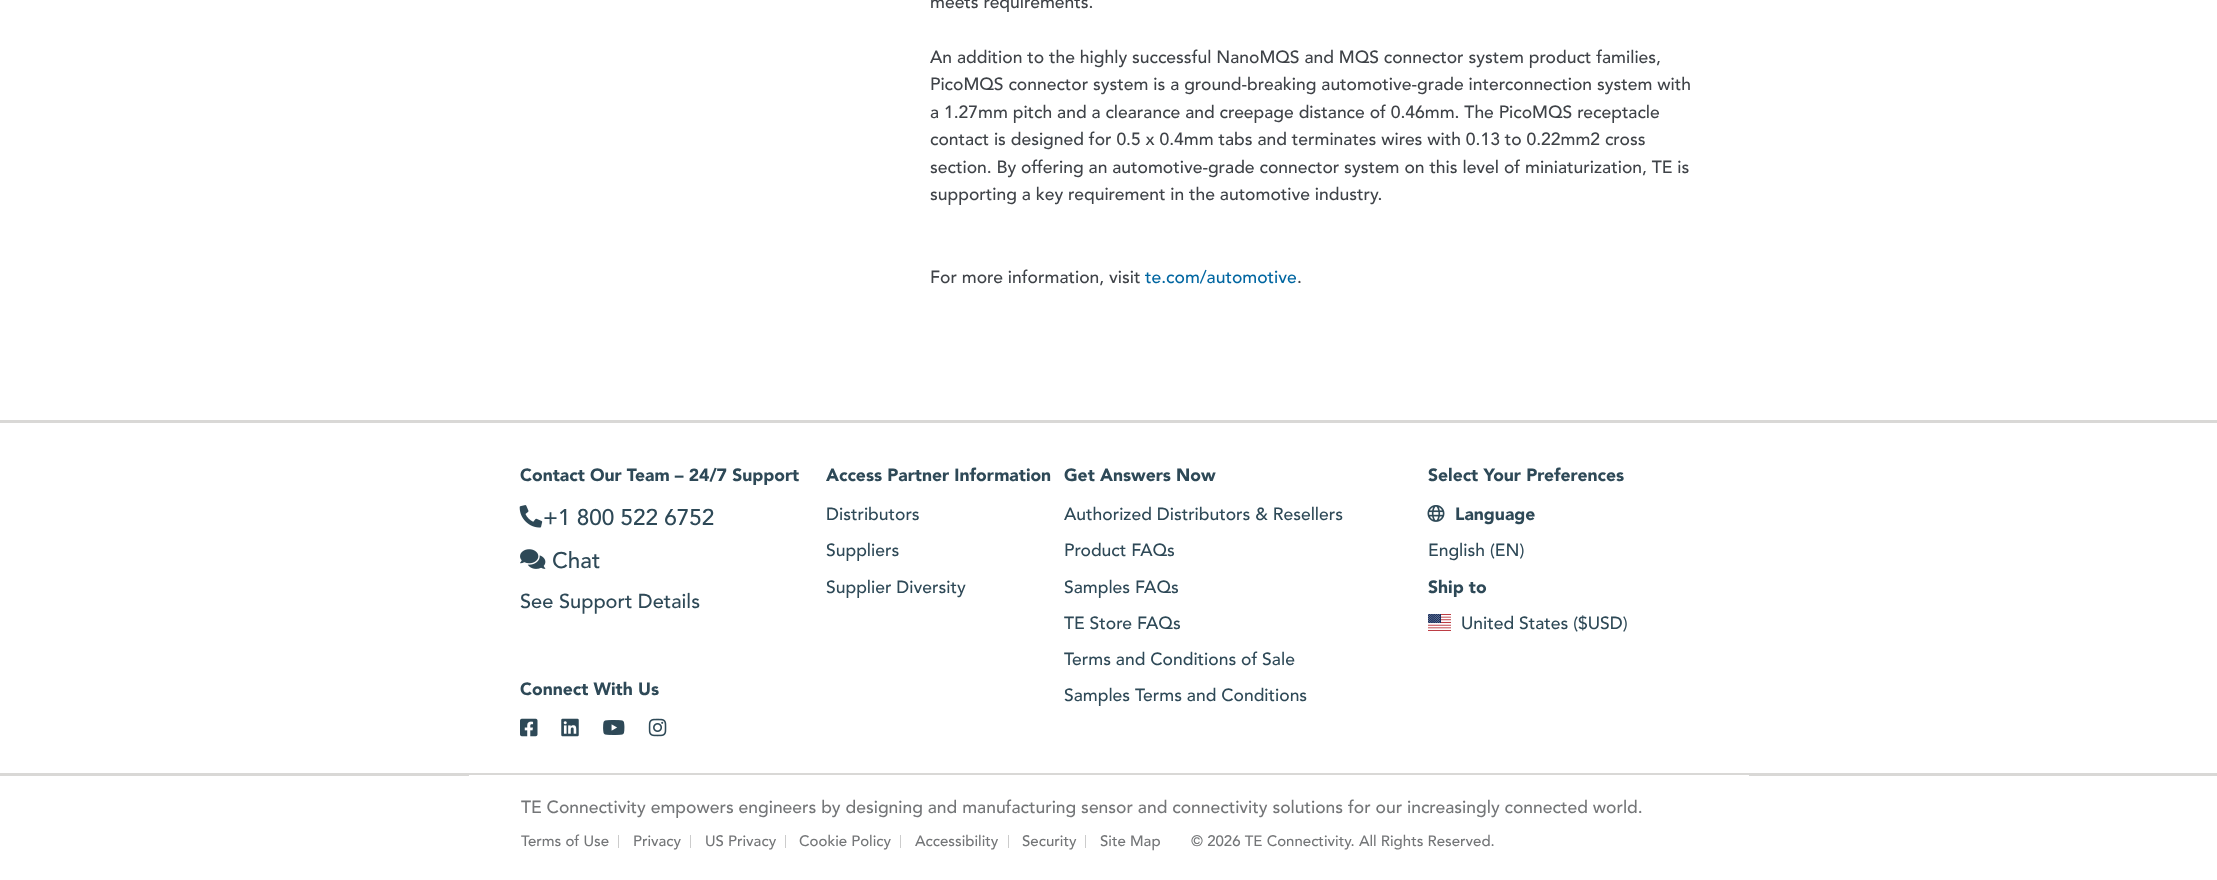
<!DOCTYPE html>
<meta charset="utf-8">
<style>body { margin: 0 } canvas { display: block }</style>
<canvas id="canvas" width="2217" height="880"></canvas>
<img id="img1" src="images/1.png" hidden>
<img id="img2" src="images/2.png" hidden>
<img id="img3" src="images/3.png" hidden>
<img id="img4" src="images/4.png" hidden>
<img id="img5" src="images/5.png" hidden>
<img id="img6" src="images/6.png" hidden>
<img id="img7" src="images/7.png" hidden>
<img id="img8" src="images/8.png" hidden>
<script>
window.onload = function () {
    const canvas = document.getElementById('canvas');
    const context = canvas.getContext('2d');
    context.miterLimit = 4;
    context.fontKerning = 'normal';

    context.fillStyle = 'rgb(255, 255, 255)';
    context.fillRect(0, 0, 2217, 880);
    context.fillStyle = 'rgb(217, 216, 214)';
    context.fillRect(0, 420, 2217, 3);
    context.drawImage(document.getElementById('img1'), 519, 505, 24, 23);
    context.drawImage(document.getElementById('img2'), 520, 549, 26, 20);
    context.drawImage(document.getElementById('img3'), 1427, 505, 18, 17);
    context.drawImage(document.getElementById('img4'), 1428, 614, 23, 17);
    context.drawImage(document.getElementById('img5'), 520, 718, 18, 19);
    context.drawImage(document.getElementById('img6'), 561, 718, 18, 19);
    context.drawImage(document.getElementById('img7'), 603, 720, 22, 15);
    context.drawImage(document.getElementById('img8'), 648, 718, 19, 19);
    context.fillRect(0, 773, 2217, 3);
    context.fillStyle = 'rgb(255, 255, 255)';
    context.fillRect(469, 775, 1280, 1);
    context.fillStyle = 'rgb(204, 204, 204)';
    context.fillRect(618, 835, 1, 13);
    context.fillRect(690, 835, 1, 13);
    context.fillRect(785, 835, 1, 13);
    context.fillRect(900, 835, 1, 13);
    context.fillRect(1008, 835, 1, 13);
    context.fillRect(1085, 835, 1, 13);
    context.font = '500 17.5px Avenir';
    context.fillStyle = 'rgb(63, 67, 72)';
    context.fillText('meets requirements.', 930, 8);
    context.fillText('An addition to the highly successful NanoMQS and MQS connector system product families,', 930, 63);
    context.fillText('PicoMQS connector system is a ground-breaking automotive-grade interconnection system with', 930, 90);
    context.fillText('a 1.27mm pitch and a clearance and creepage distance of 0.46mm. The PicoMQS receptacle', 930, 118);
    context.fillText('contact is designed for 0.5 x 0.4mm tabs and terminates wires with 0.13 to 0.22mm2 cross', 930, 145);
    context.fillText('section. By offering an automotive-grade connector system on this level of miniaturization, TE is', 930, 173);
    context.fillText('supporting a key requirement in the automotive industry.', 930, 200);
    context.fillText('For more information, visit', 930, 283);
    context.fillStyle = 'rgb(0, 102, 161)';
    context.fillText('te.com/automotive', 1145, 283);
    context.fillStyle = 'rgb(63, 67, 72)';
    context.fillText('.', 1297, 283);
    context.font = '900 17.5px Avenir';
    context.fillStyle = 'rgb(46, 73, 87)';
    context.fillText('Contact Our Team – 24/7 Support', 520, 481);
    context.font = '500 22.5px Avenir';
    context.fillText('+1 800 522 6752', 543, 525);
    context.fillText('Chat', 552, 568);
    context.font = '500 20px Avenir';
    context.fillText('See Support Details', 520, 608);
    context.font = '900 17.5px Avenir';
    context.fillText('Access Partner Information', 826, 481);
    context.font = '500 17.5px Avenir';
    context.fillText('Distributors', 826, 520);
    context.fillText('Suppliers', 826, 556);
    context.fillText('Supplier Diversity', 826, 593);
    context.font = '900 17.5px Avenir';
    context.fillText('Get Answers Now', 1064, 481);
    context.font = '500 17.5px Avenir';
    context.fillText('Authorized Distributors & Resellers', 1064, 520);
    context.fillText('Product FAQs', 1064, 556);
    context.fillText('Samples FAQs', 1064, 593);
    context.fillText('TE Store FAQs', 1064, 629);
    context.fillText('Terms and Conditions of Sale', 1064, 665);
    context.fillText('Samples Terms and Conditions', 1064, 701);
    context.font = '900 17.5px Avenir';
    context.fillText('Select Your Preferences', 1428, 481);
    context.fillText('Language', 1455, 520);
    context.font = '500 17.5px Avenir';
    context.fillText('English (EN)', 1428, 556);
    context.font = '900 17.5px Avenir';
    context.fillText('Ship to', 1428, 593);
    context.font = '500 17.5px Avenir';
    context.fillText('United States ($USD)', 1461, 629);
    context.font = '900 17.5px Avenir';
    context.fillText('Connect With Us', 520, 695);
    context.font = '500 17.5px Avenir';
    context.fillStyle = 'rgb(116, 118, 120)';
    context.fillText('TE Connectivity empowers engineers by designing and manufacturing sensor and connectivity solutions for our increasingly connected world.', 521, 813);
    context.font = '500 15px Avenir';
    context.fillText('Terms of Use', 521, 846);
    context.fillText('Privacy', 633, 846);
    context.fillText('US Privacy', 705, 846);
    context.fillText('Cookie Policy', 799, 846);
    context.fillText('Accessibility', 915, 846);
    context.fillText('Security', 1022, 846);
    context.fillText('Site Map', 1100, 846);
    context.fillText('© 2026 TE Connectivity. All Rights Reserved.', 1191, 846);
};
</script>
